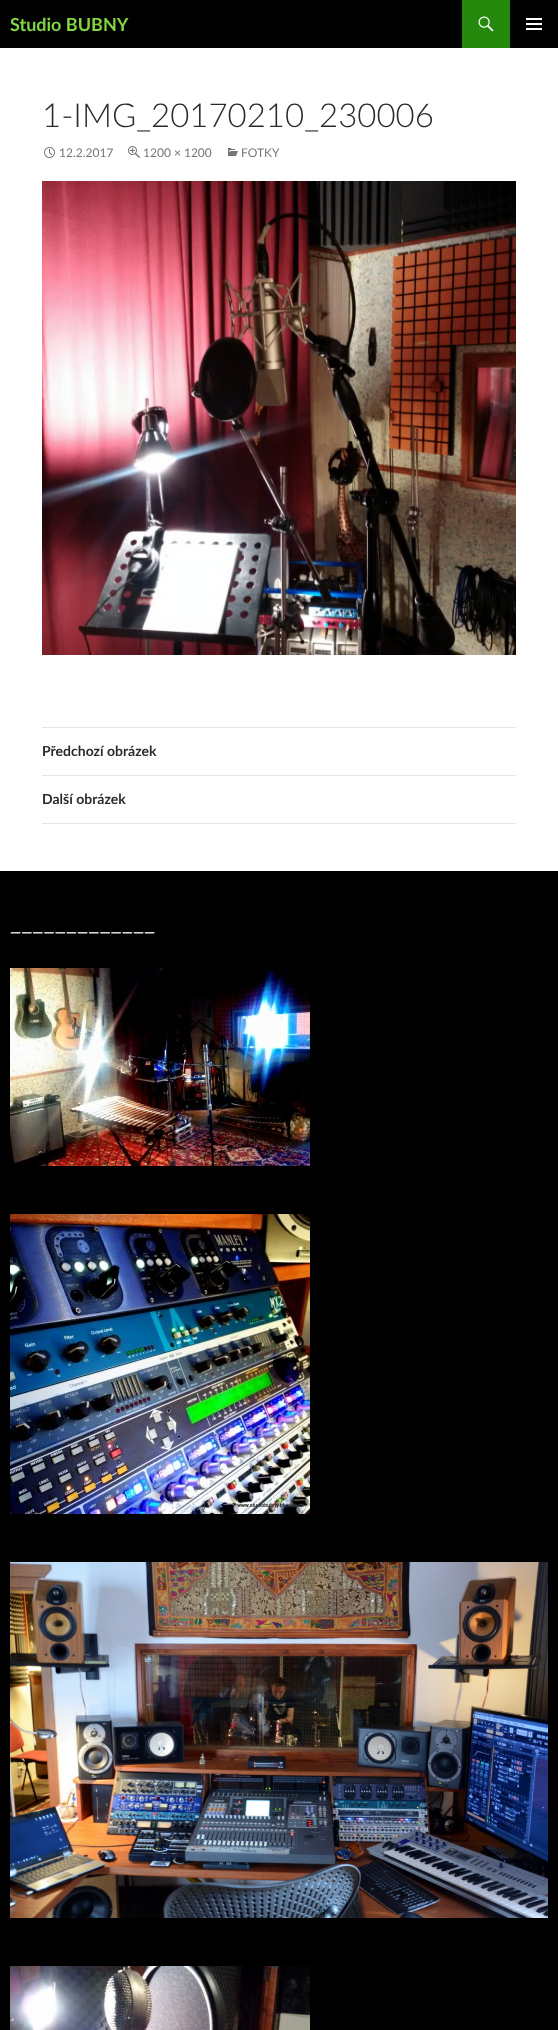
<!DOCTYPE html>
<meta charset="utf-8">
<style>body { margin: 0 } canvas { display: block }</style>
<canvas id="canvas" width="558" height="2030"></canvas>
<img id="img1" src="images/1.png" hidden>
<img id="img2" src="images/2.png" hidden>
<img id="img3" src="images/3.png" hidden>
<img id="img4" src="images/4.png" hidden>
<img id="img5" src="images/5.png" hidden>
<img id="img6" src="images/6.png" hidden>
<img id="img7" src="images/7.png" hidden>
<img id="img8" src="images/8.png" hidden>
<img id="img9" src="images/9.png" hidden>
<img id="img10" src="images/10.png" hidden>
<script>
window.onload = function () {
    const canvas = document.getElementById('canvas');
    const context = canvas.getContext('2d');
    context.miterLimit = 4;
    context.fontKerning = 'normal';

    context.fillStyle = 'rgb(255, 255, 255)';
    context.fillRect(0, 0, 558, 2030);
    context.fillStyle = 'rgb(0, 0, 0)';
    context.fillRect(0, 0, 558, 48);
    context.fillStyle = 'rgb(36, 137, 13)';
    context.fillRect(462, 0, 48, 48);
    context.drawImage(document.getElementById('img1'), 478, 16, 16, 16);
    context.drawImage(document.getElementById('img2'), 526, 18, 16, 12);
    context.drawImage(document.getElementById('img3'), 44, 147, 11, 11);
    context.drawImage(document.getElementById('img4'), 128, 146, 12, 12);
    context.drawImage(document.getElementById('img5'), 228, 148, 10, 8);
    context.drawImage(document.getElementById('img6'), 42, 181, 474, 474);
    context.fillStyle = 'rgb(230, 230, 230)';
    context.fillRect(42, 727, 474, 1);
    context.fillRect(42, 775, 474, 1);
    context.fillRect(42, 823, 474, 1);
    context.fillStyle = 'rgb(0, 0, 0)';
    context.fillRect(0, 871, 558, 1159);
    context.drawImage(document.getElementById('img7'), 10, 968, 300, 198);
    context.drawImage(document.getElementById('img8'), 10, 1214, 300, 300);
    context.drawImage(document.getElementById('img9'), 10, 1562, 538, 356);
    context.drawImage(document.getElementById('img10'), 10, 1966, 300, 64);
    context.font = 'bold 18px Lato';
    context.fillStyle = 'rgb(129, 215, 66)';
    context.fillText('Studio BUBNY', 10, 31);
    context.font = '300 33px Lato';
    context.fillStyle = 'rgb(43, 43, 43)';
    context.fillText('1-IMG_20170210_230006', 42, 127);
    context.font = '12px Lato';
    context.fillStyle = 'rgb(118, 118, 118)';
    context.fillText('12.2.2017', 59, 157);
    context.fillText('1200 × 1200', 143, 157);
    context.fillText('FOTKY', 241, 157);
    context.font = 'bold 14px Lato';
    context.fillStyle = 'rgb(43, 43, 43)';
    context.fillText('Předchozí obrázek', 42, 756);
    context.fillText('Další obrázek', 42, 804);
    context.fillStyle = 'rgb(255, 255, 255)';
    context.fillText('—————————————', 10, 937);
};
</script>
